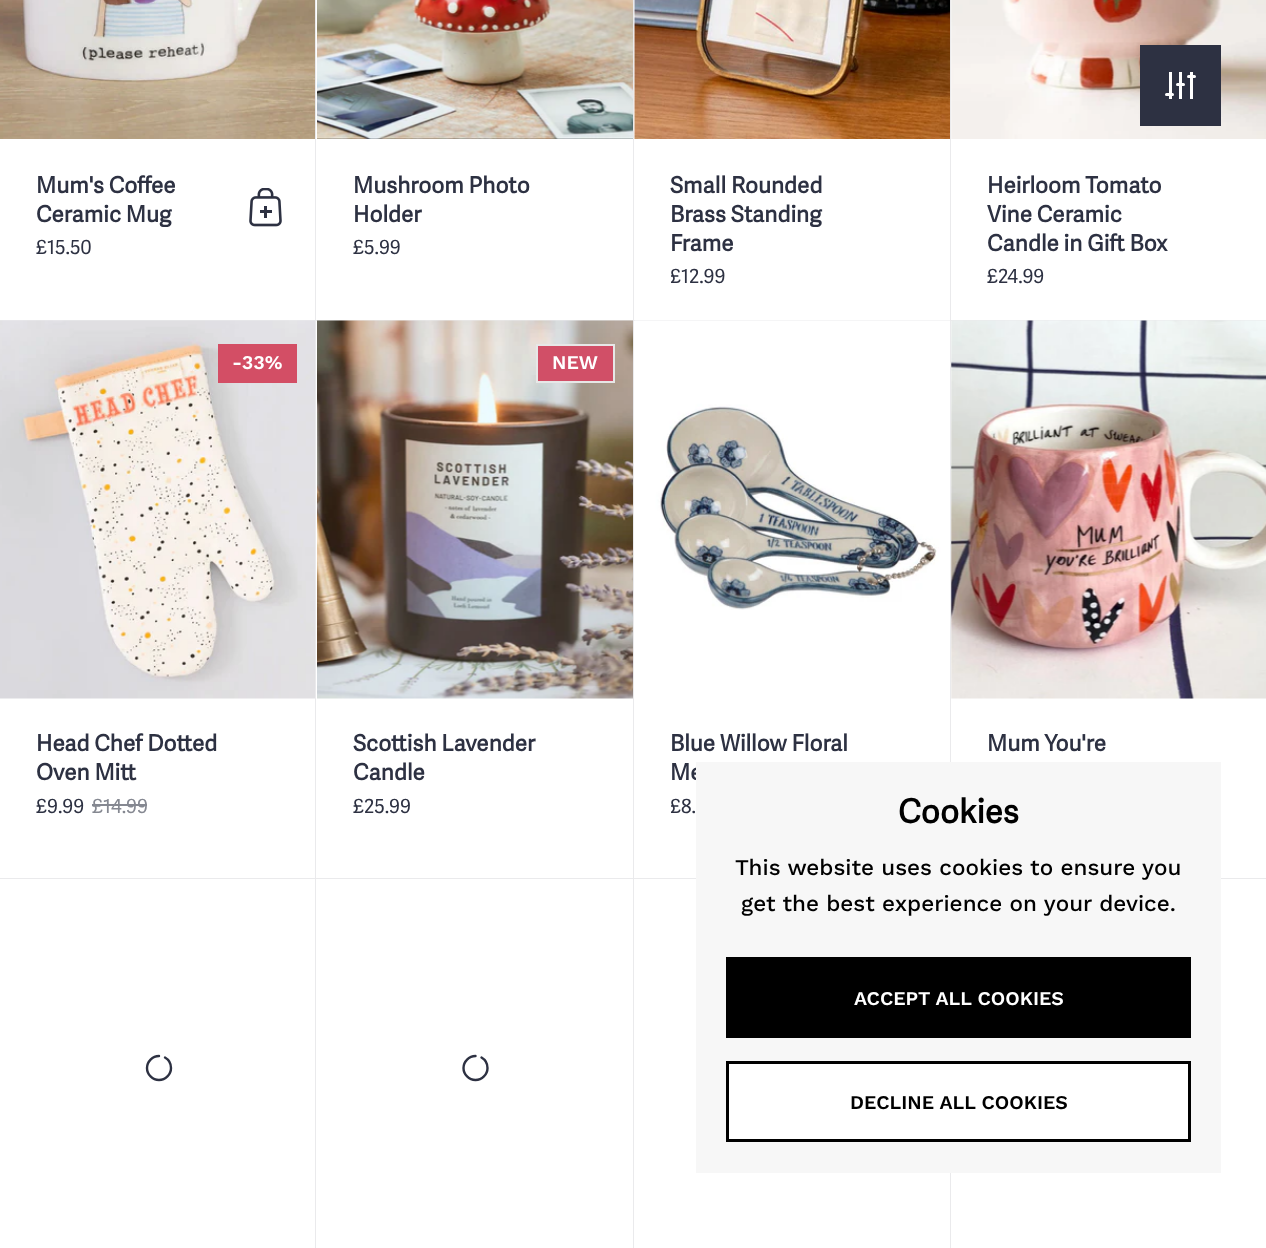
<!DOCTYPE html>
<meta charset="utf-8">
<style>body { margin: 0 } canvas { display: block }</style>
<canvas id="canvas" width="1266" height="1248"></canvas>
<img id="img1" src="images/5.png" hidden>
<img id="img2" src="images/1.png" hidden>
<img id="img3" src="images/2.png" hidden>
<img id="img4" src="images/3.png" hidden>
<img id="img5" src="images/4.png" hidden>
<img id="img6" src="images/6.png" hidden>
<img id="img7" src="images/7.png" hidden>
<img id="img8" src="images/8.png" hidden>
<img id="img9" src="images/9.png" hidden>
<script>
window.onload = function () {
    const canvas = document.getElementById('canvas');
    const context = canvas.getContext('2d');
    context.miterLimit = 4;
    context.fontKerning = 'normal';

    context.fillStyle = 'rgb(255, 255, 255)';
    context.fillRect(0, 0, 1266, 1248);
    context.drawImage(document.getElementById('img1'), 951, 0, 315, 139);
    context.fillStyle = 'rgb(45, 49, 66)';
    context.fillRect(1140, 45, 81, 81);
    context.fillStyle = 'rgb(255, 255, 255)';
    context.fillRect(1169, 72, 3, 27);
    context.fillRect(1179, 72, 3, 27);
    context.fillRect(1190, 72, 3, 27);
    context.beginPath();
    context.roundRect(1187, 75, 9, 3, 1.5);
    context.fill();
    context.beginPath();
    context.roundRect(1176, 83, 9, 3, 1.5);
    context.fill();
    context.beginPath();
    context.roundRect(1165, 93, 9, 3, 1.5);
    context.fill();
    context.fillStyle = 'rgb(234, 234, 236)';
    context.beginPath();
    context.moveTo(316, -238);
    context.lineTo(316, 321);
    context.lineTo(315, 320);
    context.lineTo(315, -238);
    context.closePath();
    context.fill();
    context.fillStyle = 'rgba(45, 49, 66, 0.1)';
    context.beginPath();
    context.moveTo(316, 321);
    context.lineTo(0, 321);
    context.lineTo(0, 320);
    context.lineTo(315, 320);
    context.closePath();
    context.fill();
    context.drawImage(document.getElementById('img2'), 0, 0, 315, 139);
    context.drawImage(document.getElementById('img3'), 249, 188, 33, 39);
    context.fillStyle = 'rgb(234, 234, 236)';
    context.beginPath();
    context.moveTo(634, -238);
    context.lineTo(634, 321);
    context.lineTo(633, 320);
    context.lineTo(633, -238);
    context.closePath();
    context.fill();
    context.fillStyle = 'rgba(45, 49, 66, 0.1)';
    context.beginPath();
    context.moveTo(634, 321);
    context.lineTo(316, 321);
    context.lineTo(316, 320);
    context.lineTo(633, 320);
    context.closePath();
    context.fill();
    context.drawImage(document.getElementById('img4'), 317, 0, 316, 139);
    context.fillStyle = 'rgb(234, 234, 236)';
    context.beginPath();
    context.moveTo(951, -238);
    context.lineTo(951, 321);
    context.lineTo(950, 320);
    context.lineTo(950, -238);
    context.closePath();
    context.fill();
    context.fillStyle = 'rgba(45, 49, 66, 0.1)';
    context.beginPath();
    context.moveTo(951, 321);
    context.lineTo(634, 321);
    context.lineTo(634, 320);
    context.lineTo(950, 320);
    context.closePath();
    context.fill();
    context.drawImage(document.getElementById('img5'), 634, 0, 316, 139);
    context.fillStyle = 'rgb(234, 234, 236)';
    context.beginPath();
    context.moveTo(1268, 321);
    context.lineTo(951, 321);
    context.lineTo(951, 320);
    context.lineTo(1266, 320);
    context.closePath();
    context.fill();
    context.beginPath();
    context.moveTo(316, 321);
    context.lineTo(316, 879);
    context.lineTo(315, 878);
    context.lineTo(315, 321);
    context.closePath();
    context.fill();
    context.fillStyle = 'rgba(45, 49, 66, 0.1)';
    context.beginPath();
    context.moveTo(316, 879);
    context.lineTo(0, 879);
    context.lineTo(0, 878);
    context.lineTo(315, 878);
    context.closePath();
    context.fill();
    context.drawImage(document.getElementById('img6'), 0, 320, 315, 379);
    context.fillStyle = 'rgb(211, 78, 101)';
    context.fillRect(218, 344, 79, 39);
    context.fillStyle = 'rgb(133, 136, 145)';
    context.fillRect(92, 804, 55, 2);
    context.fillStyle = 'rgb(234, 234, 236)';
    context.beginPath();
    context.moveTo(634, 321);
    context.lineTo(634, 879);
    context.lineTo(633, 878);
    context.lineTo(633, 321);
    context.closePath();
    context.fill();
    context.fillStyle = 'rgba(45, 49, 66, 0.1)';
    context.beginPath();
    context.moveTo(634, 879);
    context.lineTo(316, 879);
    context.lineTo(316, 878);
    context.lineTo(633, 878);
    context.closePath();
    context.fill();
    context.drawImage(document.getElementById('img7'), 317, 320, 316, 379);
    context.fillStyle = 'rgb(209, 79, 103)';
    context.beginPath();
    context.rect(537, 345, 77, 37);
    context.fill();
    context.strokeStyle = 'rgb(231, 231, 231)';
    context.lineWidth = 2;
    context.stroke();
    context.fillStyle = 'rgb(234, 234, 236)';
    context.beginPath();
    context.moveTo(951, 321);
    context.lineTo(951, 879);
    context.lineTo(950, 878);
    context.lineTo(950, 321);
    context.closePath();
    context.fill();
    context.fillStyle = 'rgba(45, 49, 66, 0.1)';
    context.beginPath();
    context.moveTo(951, 879);
    context.lineTo(634, 879);
    context.lineTo(634, 878);
    context.lineTo(950, 878);
    context.closePath();
    context.fill();
    context.drawImage(document.getElementById('img8'), 634, 320, 316, 290);
    context.fillStyle = 'rgb(234, 234, 236)';
    context.beginPath();
    context.moveTo(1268, 879);
    context.lineTo(951, 879);
    context.lineTo(951, 878);
    context.lineTo(1266, 878);
    context.closePath();
    context.fill();
    context.drawImage(document.getElementById('img9'), 951, 320, 315, 379);
    context.beginPath();
    context.moveTo(316, 879);
    context.lineTo(316, 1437);
    context.lineTo(315, 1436);
    context.lineTo(315, 879);
    context.closePath();
    context.fill();
    context.beginPath();
    context.moveTo(165, 1057.5);
    context.bezierCurveTo(168.5, 1059.5, 171, 1063.5, 171, 1068);
    context.bezierCurveTo(171, 1074.5, 165.5, 1080, 159, 1080);
    context.bezierCurveTo(152.5, 1080, 147, 1074.5, 147, 1068);
    context.bezierCurveTo(147, 1061.5, 152.5, 1056, 159, 1056);
    context.strokeStyle = 'rgb(45, 49, 66)';
    context.lineWidth = 2.4;
    context.lineCap = 'round';
    context.stroke();
    context.beginPath();
    context.moveTo(634, 879);
    context.lineTo(634, 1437);
    context.lineTo(633, 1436);
    context.lineTo(633, 879);
    context.closePath();
    context.fill();
    context.beginPath();
    context.moveTo(481.5, 1057.5);
    context.bezierCurveTo(485, 1059.5, 487.5, 1063.5, 487.5, 1068);
    context.bezierCurveTo(487.5, 1074.5, 482, 1080, 475.5, 1080);
    context.bezierCurveTo(469, 1080, 463.5, 1074.5, 463.5, 1068);
    context.bezierCurveTo(463.5, 1061.5, 469, 1056, 475.5, 1056);
    context.stroke();
    context.beginPath();
    context.moveTo(951, 879);
    context.lineTo(951, 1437);
    context.lineTo(950, 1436);
    context.lineTo(950, 879);
    context.closePath();
    context.fill();
    context.font = 'bold 22.5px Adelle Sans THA';
    context.fillStyle = 'rgb(45, 49, 66)';
    context.fillText('Mum\'s Coffee', 36, 193);
    context.fillText('Ceramic Mug', 36, 222);
    context.font = '19.5px Adelle Sans THA';
    context.fillText('£15.50', 36, 254);
    context.font = 'bold 22.5px Adelle Sans THA';
    context.fillText('Mushroom Photo', 353, 193);
    context.fillText('Holder', 353, 222);
    context.font = '19.5px Adelle Sans THA';
    context.fillText('£5.99', 353, 254);
    context.font = 'bold 22.5px Adelle Sans THA';
    context.fillText('Small Rounded', 670, 193);
    context.fillText('Brass Standing', 670, 222);
    context.fillText('Frame', 670, 251);
    context.save();
    context.beginPath();
    context.rect(671, 266, 198, 24);
    context.clip();
    context.font = '19.5px Adelle Sans THA';
    context.fillText('£12.99', 670, 283);
    context.restore();
    context.fillText('Heirloom Tomato', 987, 193);
    context.fillText('Vine Ceramic', 987, 222);
    context.fillText('Candle in Gift Box', 987, 251);
    context.font = '19.5px Adelle Sans THA';
    context.fillText('£24.99', 987, 283);
    context.font = '600 19.5px Work Sans';
    context.fillStyle = 'rgb(255, 255, 255)';
    context.fillText('-33%', 232, 369);
    context.font = 'bold 22.5px Adelle Sans THA';
    context.fillStyle = 'rgb(45, 49, 66)';
    context.fillText('Head Chef Dotted', 36, 751);
    context.fillText('Oven Mitt', 36, 780);
    context.font = '19.5px Adelle Sans THA';
    context.fillText('£9.99', 36, 813);
    context.fillStyle = 'rgb(133, 136, 145)';
    context.fillText('£14.99', 92, 813);
    context.font = '600 19.5px Work Sans';
    context.fillStyle = 'rgb(255, 255, 255)';
    context.fillText('NEW', 552, 369);
    context.font = 'bold 22.5px Adelle Sans THA';
    context.fillStyle = 'rgb(45, 49, 66)';
    context.fillText('Scottish Lavender', 353, 751);
    context.fillText('Candle', 353, 780);
    context.font = '19.5px Adelle Sans THA';
    context.fillText('£25.99', 353, 813);
    context.font = 'bold 22.5px Adelle Sans THA';
    context.fillText('Blue Willow Floral', 670, 751);
    context.fillText('Me', 670, 780);
    context.save();
    context.beginPath();
    context.rect(671, 795, 198, 23);
    context.clip();
    context.font = '19.5px Adelle Sans THA';
    context.fillText('£8.', 670, 813);
    context.restore();
    context.fillText('Mum You\'re', 987, 751);
    context.fillStyle = 'rgb(247, 247, 247)';
    context.fillRect(696, 762, 525, 411);
    context.font = 'bold 33px Adelle Sans THA';
    context.fillStyle = 'rgb(0, 0, 0)';
    context.fillText('Cookies', 898, 823);
    context.font = '500 22.5px Work Sans';
    context.fillText('This website uses cookies to ensure you', 735, 875);
    context.fillText('get the best experience on your device.', 741, 911);
    context.fillRect(726, 957, 465, 81);
    context.font = '600 19.5px Work Sans';
    context.fillStyle = 'rgb(255, 255, 255)';
    context.fillText('ACCEPT ALL COOKIES', 854, 1005);
    context.beginPath();
    context.rect(727.5, 1062.5, 462, 78);
    context.fill();
    context.strokeStyle = 'rgb(0, 0, 0)';
    context.lineWidth = 3;
    context.stroke();
    context.fillStyle = 'rgb(0, 0, 0)';
    context.fillText('DECLINE ALL COOKIES', 850, 1109);
};
</script>
